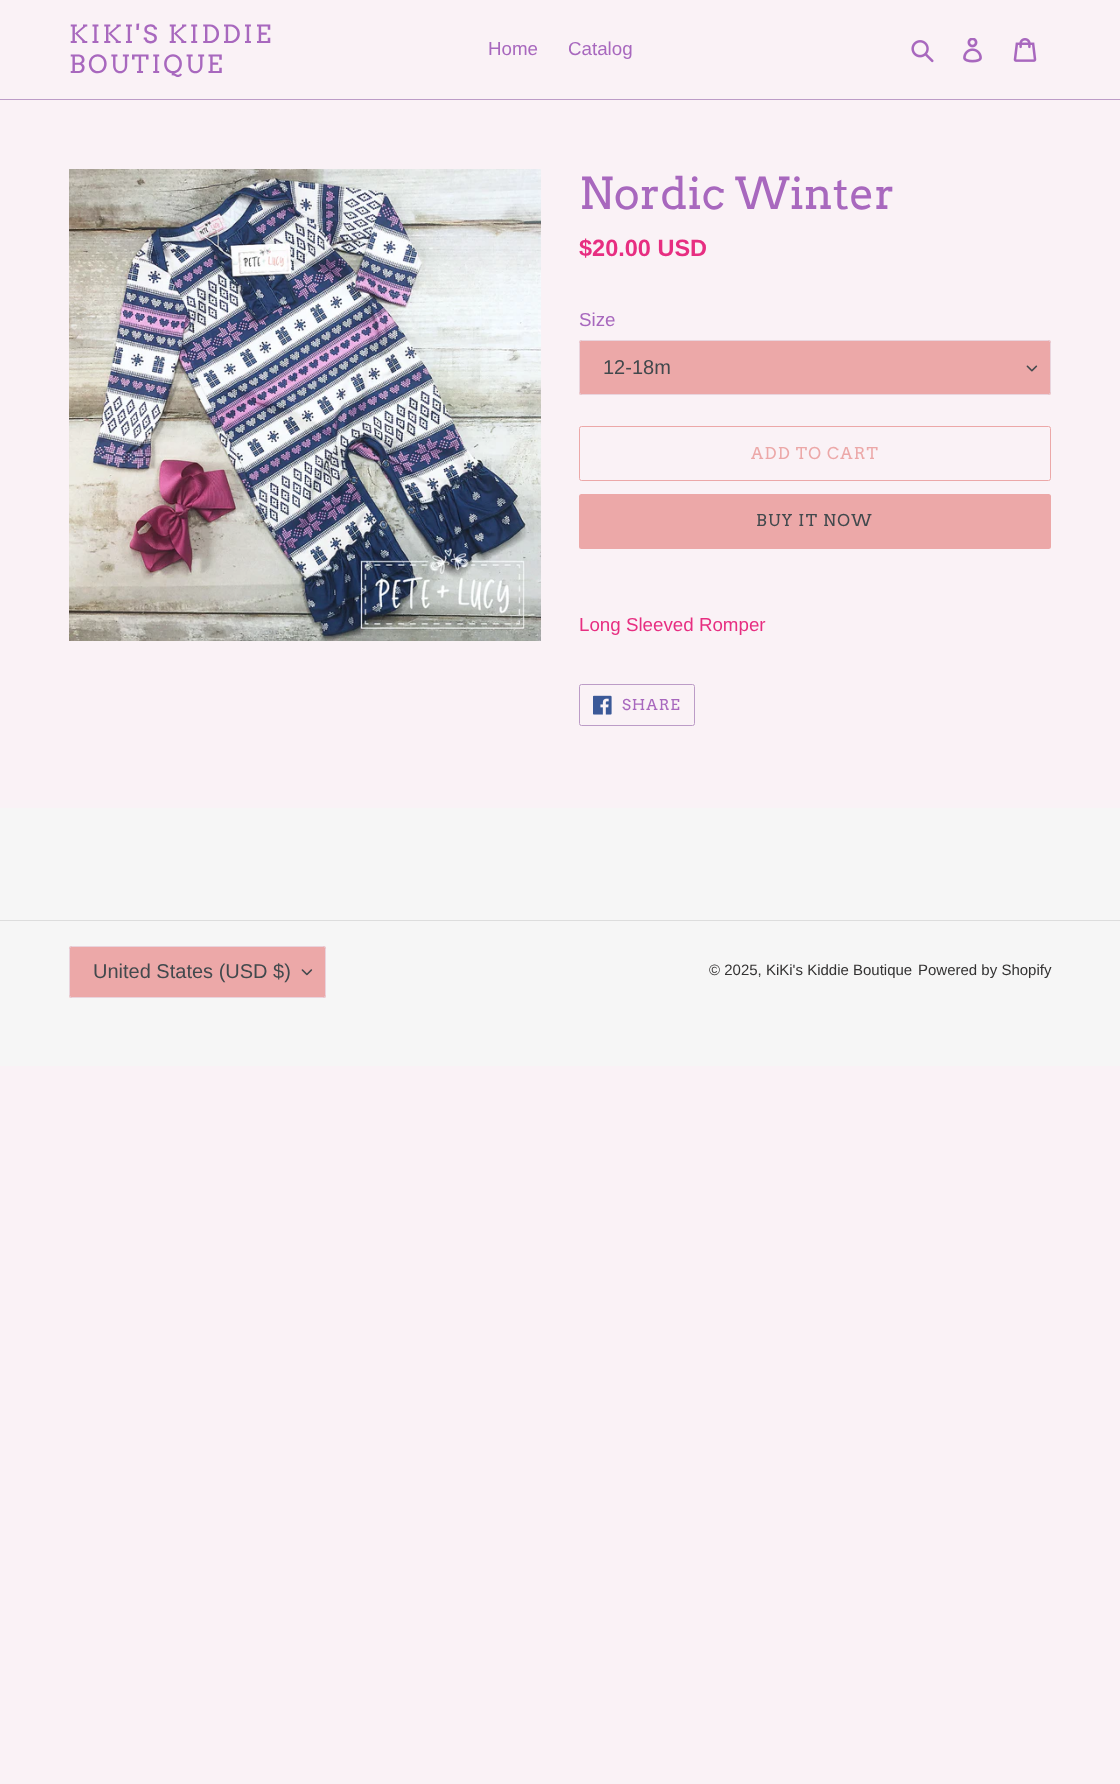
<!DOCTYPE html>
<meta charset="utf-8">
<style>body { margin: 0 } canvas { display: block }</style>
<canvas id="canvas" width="1120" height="1784"></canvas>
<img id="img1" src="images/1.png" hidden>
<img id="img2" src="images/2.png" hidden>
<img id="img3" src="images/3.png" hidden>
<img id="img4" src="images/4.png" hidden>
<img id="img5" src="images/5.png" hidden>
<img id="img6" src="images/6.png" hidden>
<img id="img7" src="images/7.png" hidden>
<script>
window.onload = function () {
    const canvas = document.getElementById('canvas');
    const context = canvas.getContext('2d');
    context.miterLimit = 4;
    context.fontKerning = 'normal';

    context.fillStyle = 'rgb(250, 242, 246)';
    context.fillRect(0, 0, 1120, 1784);
    context.fillStyle = 'rgb(188, 156, 199)';
    context.fillRect(0, 99, 1120, 1);
    context.drawImage(document.getElementById('img1'), 911, 40, 23, 23);
    context.drawImage(document.getElementById('img2'), 963, 38, 19, 25);
    context.drawImage(document.getElementById('img3'), 1013, 38, 24, 24);
    context.drawImage(document.getElementById('img4'), 69, 169, 472, 472);
    context.fillStyle = 'rgb(236, 168, 168)';
    context.beginPath();
    context.roundRect(579, 340, 472, 55, 2.5);
    context.fill();
    context.drawImage(document.getElementById('img5'), 1026, 365, 12, 7);
    context.beginPath();
    context.roundRect(579.5, 340.5, 471, 54, 2);
    context.strokeStyle = 'rgb(233, 212, 221)';
    context.stroke();
    context.beginPath();
    context.roundRect(579.5, 426.5, 471, 54, 2);
    context.strokeStyle = 'rgb(236, 168, 168)';
    context.stroke();
    context.beginPath();
    context.roundRect(579, 494, 472, 55, 2.5);
    context.fill();
    context.beginPath();
    context.roundRect(579.5, 684.5, 115, 41, 2);
    context.strokeStyle = 'rgb(188, 156, 199)';
    context.stroke();
    context.drawImage(document.getElementById('img6'), 593, 695, 19, 20);
    context.fillStyle = 'rgb(246, 246, 246)';
    context.fillRect(0, 808, 1120, 258);
    context.fillStyle = 'rgb(221, 221, 221)';
    context.fillRect(0, 920, 1120, 1);
    context.fillStyle = 'rgb(236, 168, 168)';
    context.beginPath();
    context.roundRect(69, 946, 257, 52, 2.5);
    context.fill();
    context.drawImage(document.getElementById('img7'), 301, 969, 12, 7);
    context.beginPath();
    context.roundRect(69.5, 946.5, 256, 51, 2);
    context.strokeStyle = 'rgb(233, 212, 221)';
    context.stroke();
    context.letterSpacing = '2.5px';
    context.font = '25px Arvo';
    context.fillStyle = 'rgb(168, 104, 190)';
    context.fillText('KIKI\'S KIDDIE', 69, 43);
    context.fillText('BOUTIQUE', 69, 73);
    context.letterSpacing = '0px';
    context.font = '18.75px Liberation Sans';
    context.fillText('Home', 488, 55);
    context.fillText('Catalog', 568, 55);
    context.font = '43.75px Arvo';
    context.fillText('Nordic Winter', 579, 209);
    context.font = 'bold 23.5px Liberation Sans';
    context.fillStyle = 'rgb(231, 46, 129)';
    context.fillText('$20.00 USD', 579, 256);
    context.font = '18.75px Liberation Sans';
    context.fillStyle = 'rgb(168, 104, 190)';
    context.fillText('Size', 579, 326);
    context.font = '20px Liberation Sans';
    context.fillStyle = 'rgb(66, 73, 77)';
    context.fillText('12-18m', 603, 374);
    context.letterSpacing = '1.25px';
    context.font = '16.25px Arvo';
    context.fillStyle = 'rgb(236, 168, 168)';
    context.fillText('ADD TO CART', 751, 459);
    context.fillStyle = 'rgb(66, 73, 77)';
    context.fillText('BUY IT NOW', 756, 526);
    context.letterSpacing = '0px';
    context.font = '18.75px Liberation Sans';
    context.fillStyle = 'rgb(231, 46, 129)';
    context.fillText('Long Sleeved Romper', 579, 631);
    context.letterSpacing = '1px';
    context.font = '15px Arvo';
    context.fillStyle = 'rgb(168, 104, 190)';
    context.fillText('SHARE', 622, 710);
    context.letterSpacing = '0px';
    context.font = '20px Liberation Sans';
    context.fillStyle = 'rgb(66, 73, 77)';
    context.fillText('United States (USD $)', 93, 978);
    context.font = '15px Liberation Sans';
    context.fillStyle = 'rgb(51, 50, 50)';
    context.fillText('© 2025, KiKi\'s Kiddie Boutique', 709, 975);
    context.fillText('Powered by Shopify', 918, 975);
};
</script>
